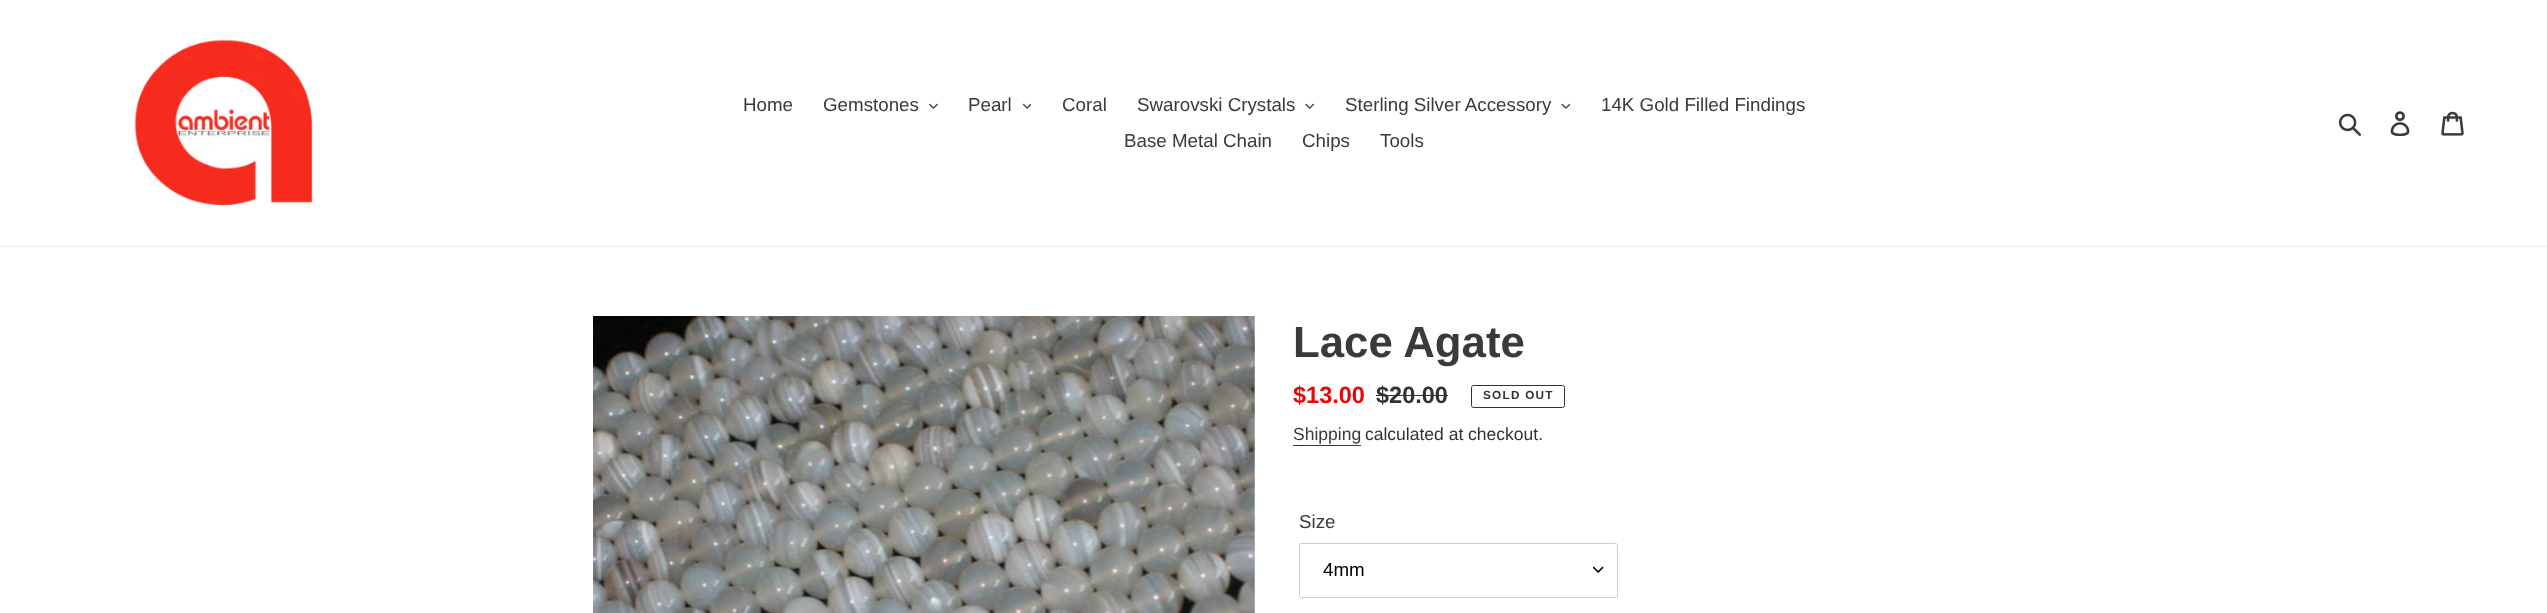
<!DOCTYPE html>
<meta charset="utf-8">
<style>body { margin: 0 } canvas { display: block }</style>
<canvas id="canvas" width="2547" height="613"></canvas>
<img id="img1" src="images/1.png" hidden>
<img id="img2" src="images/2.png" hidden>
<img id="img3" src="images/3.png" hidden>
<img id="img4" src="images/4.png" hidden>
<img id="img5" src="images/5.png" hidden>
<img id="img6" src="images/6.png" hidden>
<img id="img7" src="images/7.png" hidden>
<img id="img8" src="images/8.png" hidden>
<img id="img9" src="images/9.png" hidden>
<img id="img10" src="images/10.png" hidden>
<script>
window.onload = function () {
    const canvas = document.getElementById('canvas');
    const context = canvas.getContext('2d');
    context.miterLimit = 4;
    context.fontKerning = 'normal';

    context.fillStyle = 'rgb(255, 255, 255)';
    context.fillRect(0, 0, 2547, 613);
    context.fillStyle = 'rgb(235, 235, 235)';
    context.fillRect(0, 246, 2547, 1);
    context.drawImage(document.getElementById('img1'), 131, 39, 182, 168);
    context.drawImage(document.getElementById('img2'), 929, 103, 9, 6);
    context.drawImage(document.getElementById('img3'), 1023, 103, 8, 6);
    context.drawImage(document.getElementById('img4'), 1305, 103, 9, 6);
    context.drawImage(document.getElementById('img5'), 1561, 103, 9, 6);
    context.drawImage(document.getElementById('img6'), 2338, 113, 23, 23);
    context.drawImage(document.getElementById('img7'), 2390, 111, 20, 25);
    context.drawImage(document.getElementById('img8'), 2441, 111, 23, 25);
    context.drawImage(document.getElementById('img9'), 593, 316, 662, 297);
    context.fillStyle = 'rgb(51, 50, 50)';
    context.fillRect(1376, 395, 72, 1);
    context.beginPath();
    context.roundRect(1471.5, 385.5, 93, 22, 2);
    context.strokeStyle = 'rgb(51, 50, 50)';
    context.stroke();
    context.fillStyle = 'rgb(58, 58, 58)';
    context.fillRect(1293, 445, 68, 1);
    context.drawImage(document.getElementById('img10'), 1593, 566, 11, 7);
    context.beginPath();
    context.roundRect(1299.5, 543.5, 318, 54, 2);
    context.strokeStyle = 'rgb(204, 204, 204)';
    context.stroke();
    context.font = '18.75px Liberation Sans';
    context.fillText('Home', 743, 111);
    context.fillText('Gemstones', 823, 111);
    context.fillText('Pearl', 968, 111);
    context.fillText('Coral', 1062, 111);
    context.fillText('Swarovski Crystals', 1137, 111);
    context.fillText('Sterling Silver Accessory', 1345, 111);
    context.fillText('14K Gold Filled Findings', 1601, 111);
    context.fillText('Base Metal Chain', 1124, 147);
    context.fillText('Chips', 1302, 147);
    context.fillText('Tools', 1380, 147);
    context.font = 'bold 43.75px Liberation Sans';
    context.fillText('Lace Agate', 1293, 357);
    context.font = 'bold 23.5px Liberation Sans';
    context.fillStyle = 'rgb(234, 6, 6)';
    context.fillText('$13.00', 1293, 403);
    context.fillStyle = 'rgb(51, 50, 50)';
    context.fillText('$20.00', 1376, 403);
    context.letterSpacing = '1.25px';
    context.font = 'bold 11.75px Liberation Sans';
    context.fillText('SOLD OUT', 1483, 399);
    context.letterSpacing = '0px';
    context.font = '17.5px Liberation Sans';
    context.fillStyle = 'rgb(58, 58, 58)';
    context.fillText('Shipping', 1293, 440);
    context.fillStyle = 'rgb(51, 50, 50)';
    context.fillText('calculated at checkout.', 1365, 440);
    context.font = '18.75px Liberation Sans';
    context.fillStyle = 'rgb(58, 58, 58)';
    context.fillText('Size', 1299, 528);
    context.fillStyle = 'rgb(0, 0, 0)';
    context.fillText('4mm', 1323, 576);
};
</script>
